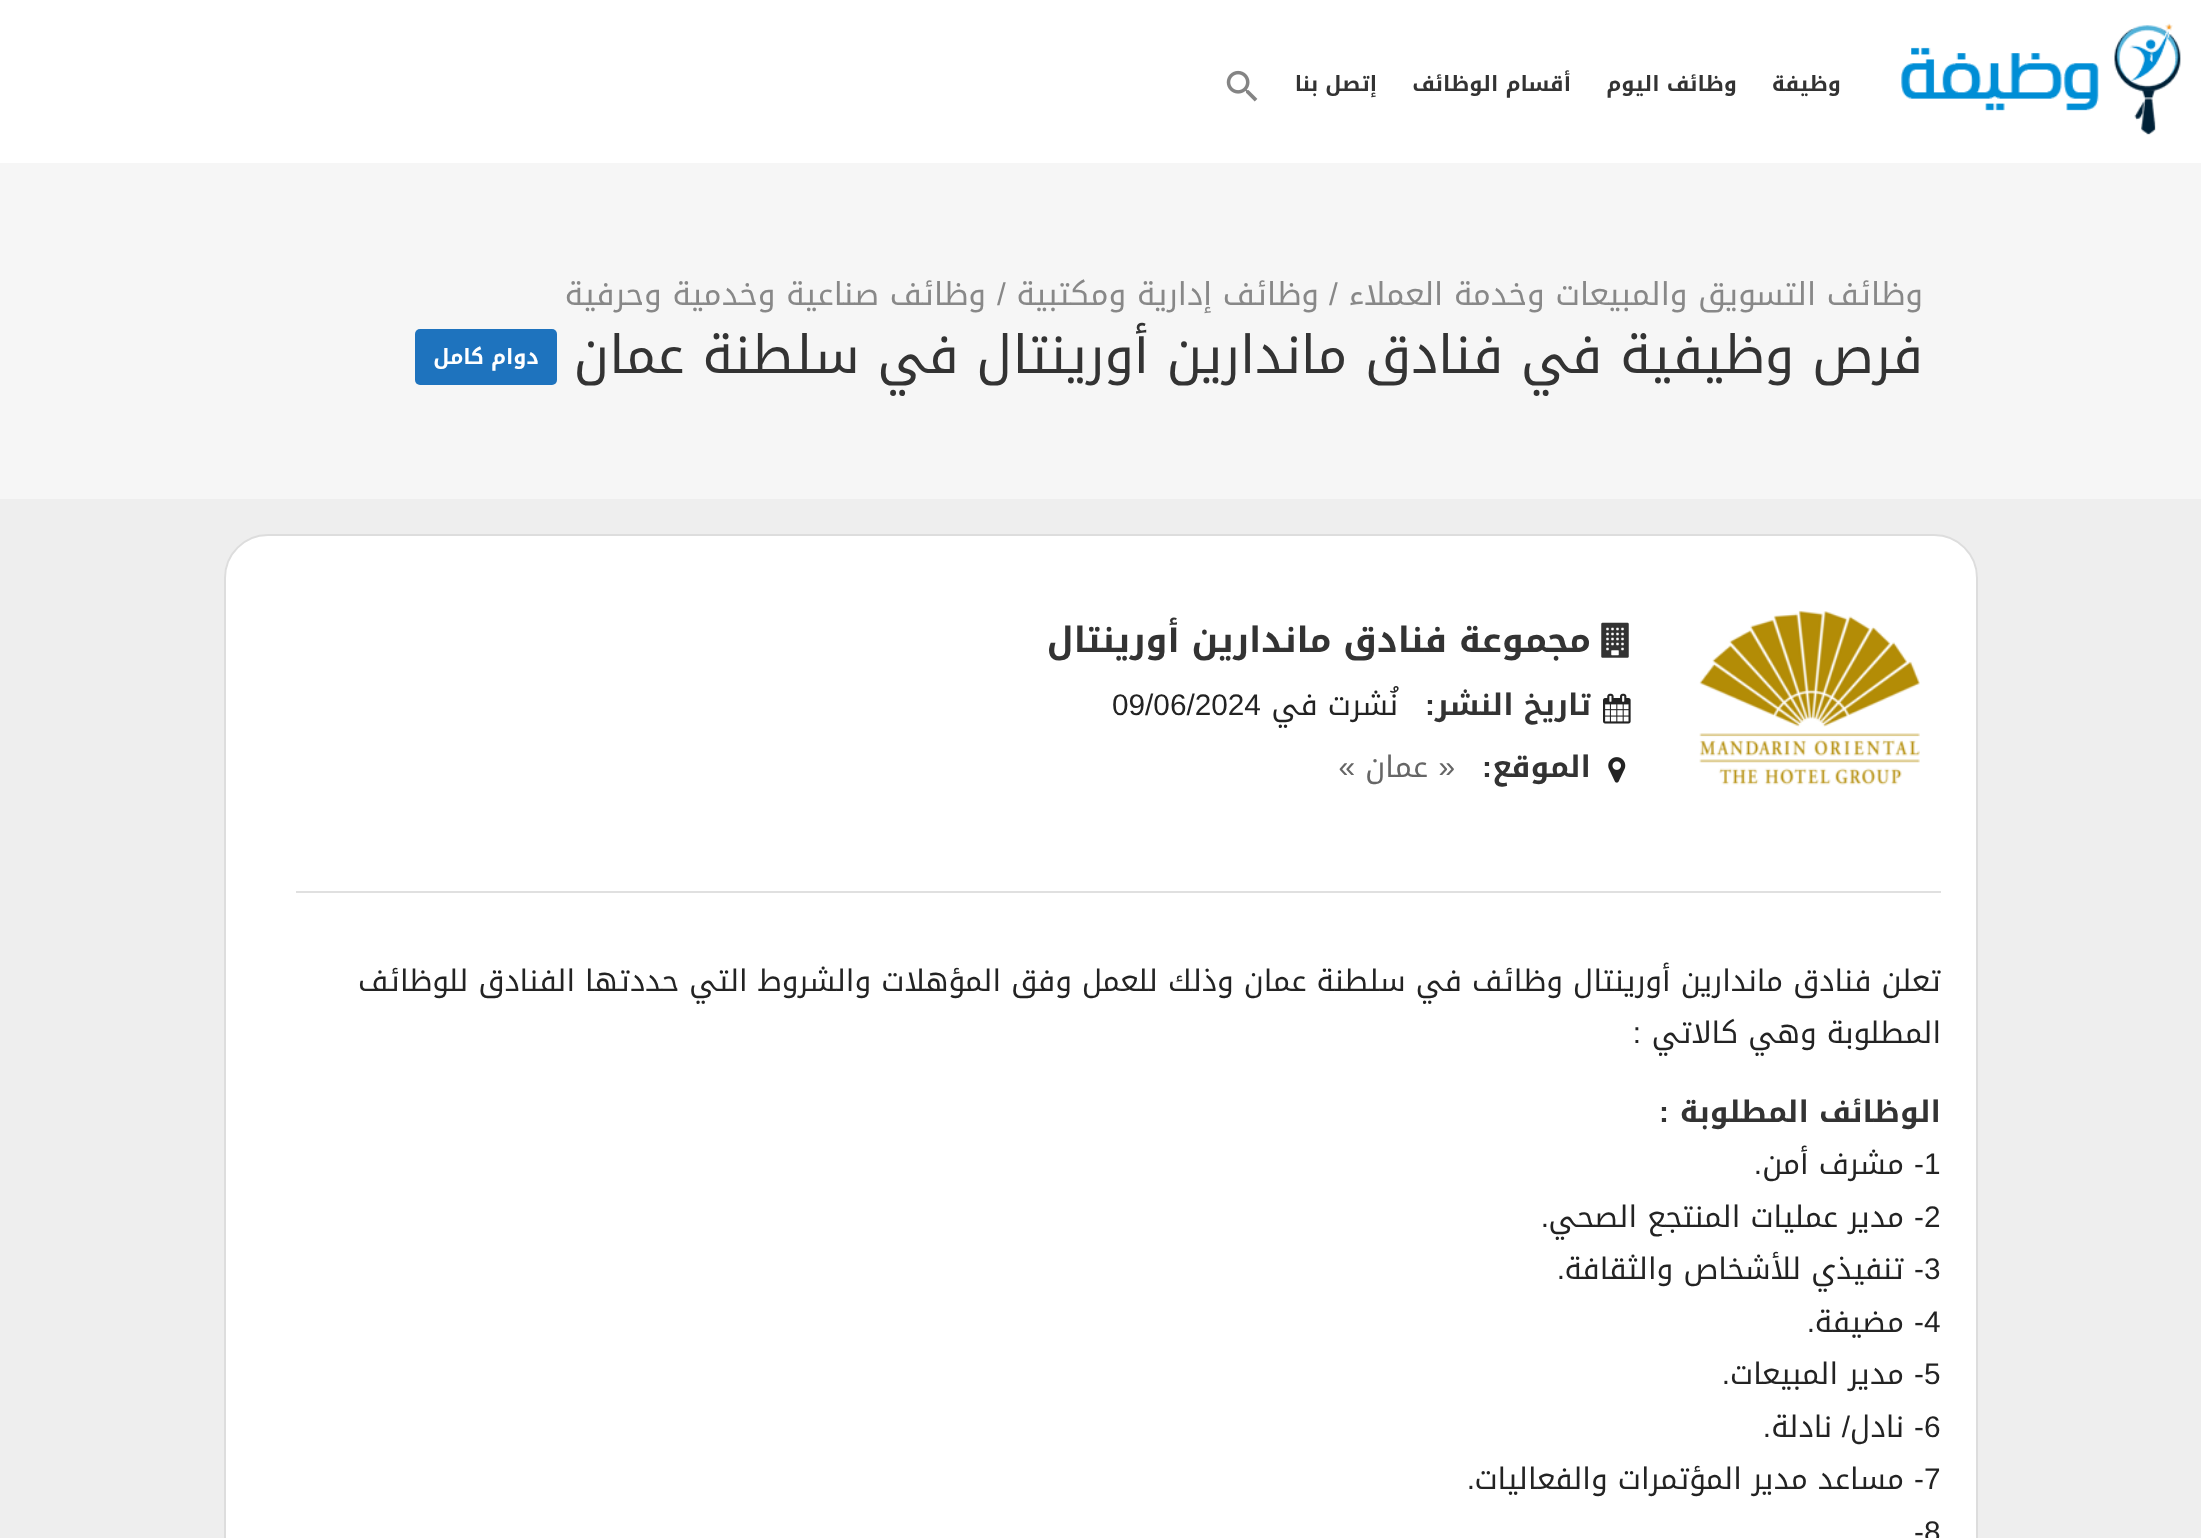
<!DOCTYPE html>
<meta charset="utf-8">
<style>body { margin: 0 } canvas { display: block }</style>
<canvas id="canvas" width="2201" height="1538"></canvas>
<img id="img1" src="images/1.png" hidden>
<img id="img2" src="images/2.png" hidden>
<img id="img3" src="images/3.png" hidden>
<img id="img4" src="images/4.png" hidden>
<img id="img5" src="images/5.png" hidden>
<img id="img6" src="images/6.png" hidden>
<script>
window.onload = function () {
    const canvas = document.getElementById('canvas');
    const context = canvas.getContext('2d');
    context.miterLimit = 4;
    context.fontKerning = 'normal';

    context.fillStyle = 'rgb(255, 255, 255)';
    context.fillRect(0, 0, 2201, 1538);
    context.fillStyle = 'rgb(238, 238, 238)';
    context.fillRect(0, 499, 2201, 1039);
    context.drawImage(document.getElementById('img1'), 1901, 23, 280, 112);
    context.drawImage(document.getElementById('img2'), 1226, 70, 32, 32);
    context.fillStyle = 'rgb(246, 246, 246)';
    context.fillRect(0, 163, 2201, 336);
    context.fillStyle = 'rgb(30, 115, 190)';
    context.beginPath();
    context.roundRect(415, 329, 142, 56, 5);
    context.fill();
    context.fillStyle = 'rgb(255, 255, 255)';
    context.beginPath();
    context.roundRect(225, 535, 1752, 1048, 43);
    context.fill();
    context.strokeStyle = 'rgb(221, 221, 221)';
    context.lineWidth = 2;
    context.stroke();
    context.fillStyle = 'rgb(224, 224, 224)';
    context.fillRect(296, 891, 1645, 2);
    context.drawImage(document.getElementById('img3'), 1699, 610, 221, 175);
    context.drawImage(document.getElementById('img4'), 1601, 622, 28, 36);
    context.drawImage(document.getElementById('img5'), 1603, 693, 28, 31);
    context.drawImage(document.getElementById('img6'), 1608, 757, 18, 26);
    context.direction = 'rtl';
    context.font = 'bold 21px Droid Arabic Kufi';
    context.fillStyle = 'rgb(51, 51, 51)';
    context.fillText('وظيفة', 1841, 91);
    context.fillText('وظائف اليوم', 1737, 91);
    context.fillText('أقسام الوظائف', 1571, 91);
    context.fillText('إتصل بنا', 1377, 91);
    context.font = '31.5px Droid Arabic Kufi';
    context.fillStyle = 'rgb(136, 136, 136)';
    context.fillText('وظائف التسويق والمبيعات وخدمة العملاء', 1923, 305);
    context.direction = 'ltr';
    context.font = '31.5px Liberation Sans';
    context.fillText('/', 1329, 305);
    context.direction = 'rtl';
    context.font = '31.5px Droid Arabic Kufi';
    context.fillText('وظائف إدارية ومكتبية', 1319, 305);
    context.direction = 'ltr';
    context.font = '31.5px Liberation Sans';
    context.fillText('/', 997, 305);
    context.direction = 'rtl';
    context.font = '31.5px Droid Arabic Kufi';
    context.fillText('وظائف صناعية وخدمية وحرفية', 986, 305);
    context.font = '52.5px Droid Arabic Kufi';
    context.fillStyle = 'rgb(51, 51, 51)';
    context.fillText('فرص وظيفية في فنادق ماندارين أورينتال في سلطنة عمان', 1923, 373);
    context.font = 'bold 21px Droid Arabic Kufi';
    context.fillStyle = 'rgb(255, 255, 255)';
    context.fillText('دوام كامل', 539, 364);
    context.font = 'bold 35px Droid Arabic Kufi';
    context.fillStyle = 'rgb(51, 51, 51)';
    context.fillText('مجموعة فنادق ماندارين أورينتال', 1591, 652);
    context.font = 'bold 29.75px Droid Arabic Kufi';
    context.fillText('تاريخ النشر', 1591, 715);
    context.font = 'bold 29.75px Liberation Sans';
    context.fillText(':', 1435, 715);
    context.font = '29.75px Droid Arabic Kufi';
    context.fillStyle = 'rgb(35, 35, 35)';
    context.fillText('نُشرت في', 1398, 715);
    context.direction = 'ltr';
    context.font = '29.75px Liberation Sans';
    context.fillText('09/06/2024', 1112, 715);
    context.direction = 'rtl';
    context.font = 'bold 29.75px Droid Arabic Kufi';
    context.fillStyle = 'rgb(51, 51, 51)';
    context.fillText('الموقع', 1591, 777);
    context.font = 'bold 29.75px Liberation Sans';
    context.fillText(':', 1492, 777);
    context.font = '29.75px Liberation Sans';
    context.fillStyle = 'rgb(102, 102, 102)';
    context.fillText('«', 1455, 777);
    context.font = '29.75px Droid Arabic Kufi';
    context.fillText('عمان', 1428, 777);
    context.font = '29.75px Liberation Sans';
    context.fillText('»', 1355, 777);
    context.font = '29.75px Droid Arabic Kufi';
    context.fillStyle = 'rgb(35, 35, 35)';
    context.fillText('تعلن فنادق ماندارين أورينتال وظائف في سلطنة عمان وذلك للعمل وفق المؤهلات والشروط التي حددتها الفنادق للوظائف', 1941, 991);
    context.fillText('المطلوبة وهي كالاتي', 1941, 1043);
    context.font = '29.75px Liberation Sans';
    context.fillText(':', 1641, 1043);
    context.font = 'bold 29.75px Droid Arabic Kufi';
    context.fillStyle = 'rgb(51, 51, 51)';
    context.fillText('الوظائف المطلوبة', 1941, 1122);
    context.font = 'bold 29.75px Liberation Sans';
    context.fillText(':', 1669, 1122);
    context.direction = 'ltr';
    context.font = '29.75px Liberation Sans';
    context.fillStyle = 'rgb(35, 35, 35)';
    context.fillText('1', 1924, 1174);
    context.direction = 'rtl';
    context.fillText('-', 1924, 1174);
    context.font = '29.75px Droid Arabic Kufi';
    context.fillText('مشرف أمن', 1904, 1174);
    context.font = '29.75px Liberation Sans';
    context.fillText('.', 1762, 1174);
    context.direction = 'ltr';
    context.fillText('2', 1924, 1227);
    context.direction = 'rtl';
    context.fillText('-', 1924, 1227);
    context.font = '29.75px Droid Arabic Kufi';
    context.fillText('مدير عمليات المنتجع الصحي', 1904, 1227);
    context.font = '29.75px Liberation Sans';
    context.fillText('.', 1549, 1227);
    context.direction = 'ltr';
    context.fillText('3', 1924, 1279);
    context.direction = 'rtl';
    context.fillText('-', 1924, 1279);
    context.font = '29.75px Droid Arabic Kufi';
    context.fillText('تنفيذي للأشخاص والثقافة', 1904, 1279);
    context.font = '29.75px Liberation Sans';
    context.fillText('.', 1565, 1279);
    context.direction = 'ltr';
    context.fillText('4', 1924, 1332);
    context.direction = 'rtl';
    context.fillText('-', 1924, 1332);
    context.font = '29.75px Droid Arabic Kufi';
    context.fillText('مضيفة', 1904, 1332);
    context.font = '29.75px Liberation Sans';
    context.fillText('.', 1815, 1332);
    context.direction = 'ltr';
    context.fillText('5', 1924, 1384);
    context.direction = 'rtl';
    context.fillText('-', 1924, 1384);
    context.font = '29.75px Droid Arabic Kufi';
    context.fillText('مدير المبيعات', 1904, 1384);
    context.font = '29.75px Liberation Sans';
    context.fillText('.', 1730, 1384);
    context.direction = 'ltr';
    context.fillText('6', 1924, 1437);
    context.direction = 'rtl';
    context.fillText('-', 1924, 1437);
    context.font = '29.75px Droid Arabic Kufi';
    context.fillText('نادل', 1904, 1437);
    context.font = '29.75px Liberation Sans';
    context.fillText('/', 1850, 1437);
    context.font = '29.75px Droid Arabic Kufi';
    context.fillText('نادلة', 1832, 1437);
    context.font = '29.75px Liberation Sans';
    context.fillText('.', 1771, 1437);
    context.direction = 'ltr';
    context.fillText('7', 1924, 1489);
    context.direction = 'rtl';
    context.fillText('-', 1924, 1489);
    context.font = '29.75px Droid Arabic Kufi';
    context.fillText('مساعد مدير المؤتمرات والفعاليات', 1904, 1489);
    context.font = '29.75px Liberation Sans';
    context.fillText('.', 1475, 1489);
    context.direction = 'ltr';
    context.fillText('8', 1924, 1542);
    context.direction = 'rtl';
    context.fillText('-', 1924, 1542);
};
</script>
